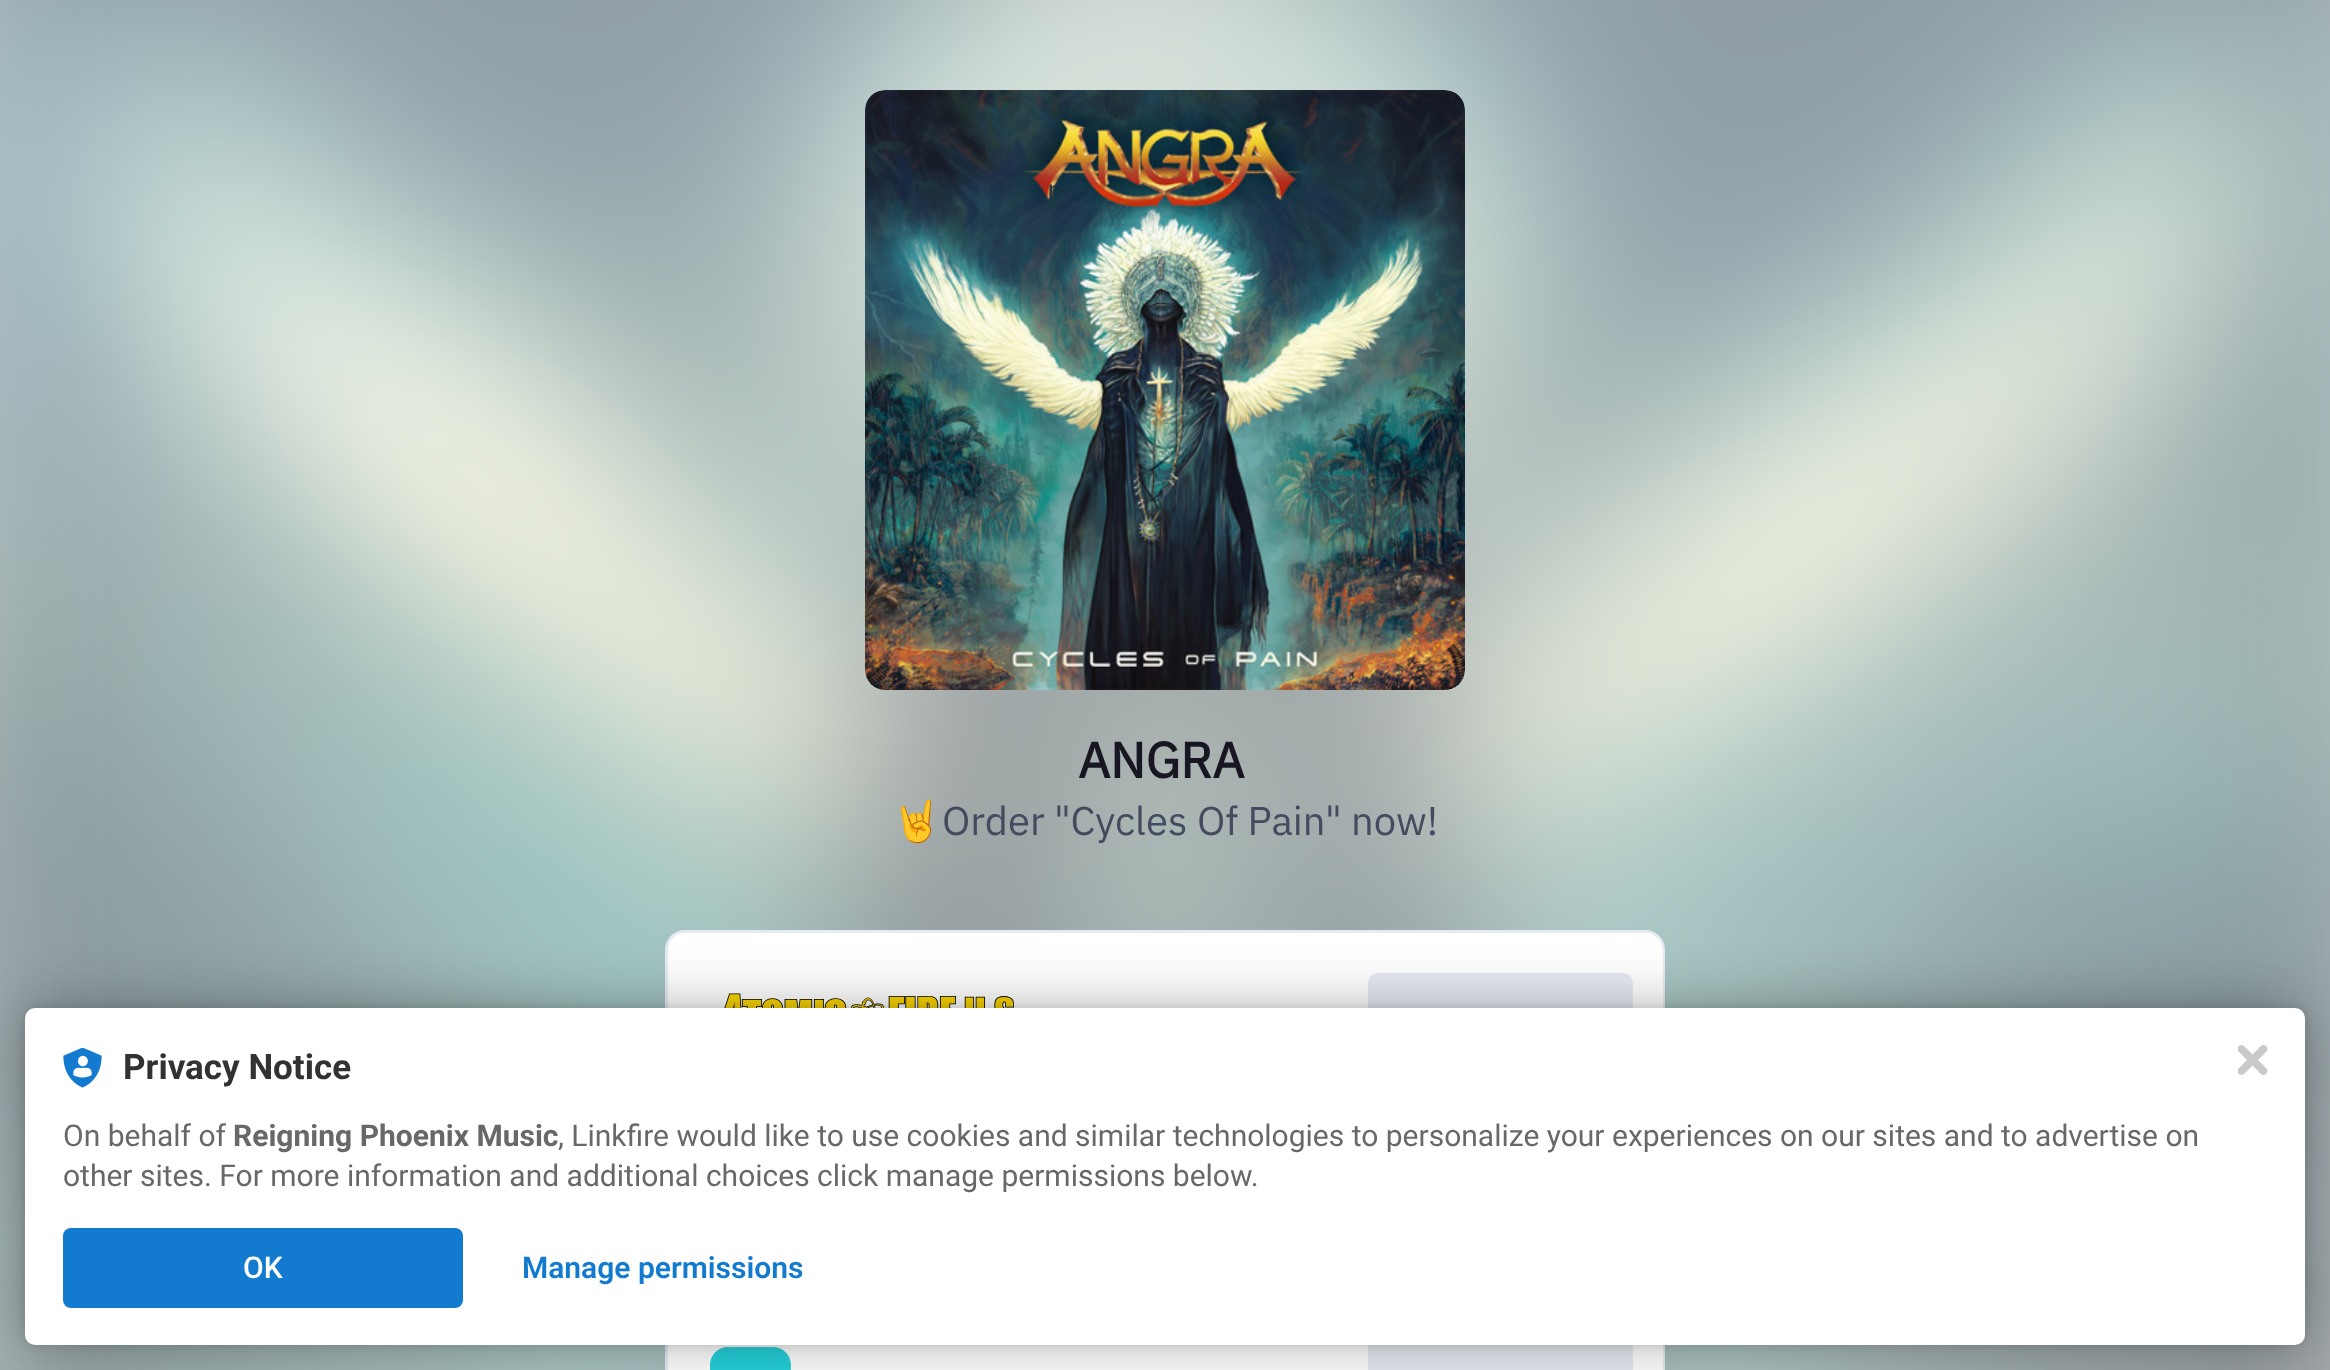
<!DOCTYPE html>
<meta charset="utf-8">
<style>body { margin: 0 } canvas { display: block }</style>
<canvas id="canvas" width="2330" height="1370"></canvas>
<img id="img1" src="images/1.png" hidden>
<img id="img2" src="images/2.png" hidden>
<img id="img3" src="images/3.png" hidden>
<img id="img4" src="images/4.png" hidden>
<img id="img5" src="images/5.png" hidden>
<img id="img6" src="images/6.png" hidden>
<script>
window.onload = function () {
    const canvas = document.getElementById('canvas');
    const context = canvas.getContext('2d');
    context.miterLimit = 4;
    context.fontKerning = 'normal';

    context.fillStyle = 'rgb(255, 255, 255)';
    context.fillRect(0, 0, 2330, 1370);
    context.drawImage(document.getElementById('img1'), 0, 0, 2330, 1370);
    context.drawImage(document.getElementById('img2'), 865, 90, 600, 600);
    context.beginPath();
    context.roundRect(666.5, 931.5, 997, 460, 18.5);
    context.fill();
    context.strokeStyle = 'rgb(230, 234, 242)';
    context.lineWidth = 3;
    context.stroke();
    context.beginPath();
    context.roundRect(668, 933, 995, 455, 18);
    context.fill();
    context.drawImage(document.getElementById('img3'), 724, 993, 290, 15);
    context.fillStyle = 'rgb(230, 234, 242)';
    context.beginPath();
    context.roundRect(1368, 973, 265, 100, 10);
    context.fill();
    context.drawImage(document.getElementById('img4'), 710, 1347, 81, 23);
    context.beginPath();
    context.roundRect(1368, 1338, 265, 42, 10);
    context.fill();
    context.fillStyle = 'rgba(0, 0, 0, 0.12)';
    context.filter = 'blur(5px)';
    context.beginPath();
    context.roundRect(25, 1008, 2280, 337, 10);
    context.fill();
    context.filter = 'none';
    context.fillStyle = 'rgba(0, 0, 0, 0.3)';
    context.filter = 'blur(30px)';
    context.beginPath();
    context.roundRect(25, 1008, 2280, 337, 10);
    context.fill();
    context.filter = 'none';
    context.fillStyle = 'rgb(255, 255, 255)';
    context.beginPath();
    context.roundRect(25, 1008, 2280, 337, 10);
    context.fill();
    context.drawImage(document.getElementById('img5'), 63, 1048, 39, 40);
    context.fillStyle = 'rgb(19, 123, 207)';
    context.beginPath();
    context.roundRect(63, 1228, 400, 80, 8);
    context.fill();
    context.drawImage(document.getElementById('img6'), 2238, 1045, 30, 30);
    context.font = '30px IBM Plex Sans';
    context.fillStyle = 'rgb(37, 54, 68)';
    context.fillText('r', 1047, 200);
    context.font = 'bold 50px IBM Plex Sans';
    context.fillStyle = 'rgb(24, 23, 33)';
    context.fillText('ANGRA', 1078, 778);
    context.font = '40px Noto Color Emoji';
    context.fillStyle = 'rgb(69, 75, 95)';
    context.fillText('🤘', 892, 835);
    context.font = '40px IBM Plex Sans';
    context.fillText('Order "Cycles Of Pain" now!', 942, 835);
    context.font = 'bold 35px Roboto';
    context.fillStyle = 'rgb(50, 50, 50)';
    context.fillText('Privacy Notice', 123, 1079);
    context.font = '30px Roboto';
    context.fillStyle = 'rgb(104, 104, 104)';
    context.fillText('On behalf of', 63, 1146);
    context.font = 'bold 30px Roboto';
    context.fillText('Reigning Phoenix Music', 233, 1146);
    context.font = '30px Roboto';
    context.fillText(', Linkfire would like to use cookies and similar technologies to personalize your experiences on our sites and to advertise on', 558, 1146);
    context.fillText('other sites. For more information and additional choices click manage permissions below.', 63, 1186);
    context.font = '500 30px Roboto';
    context.fillStyle = 'rgb(255, 255, 255)';
    context.fillText('OK', 243, 1278);
    context.font = '600 30px Roboto';
    context.fillStyle = 'rgb(19, 123, 207)';
    context.fillText('Manage permissions', 522, 1278);
};
</script>
